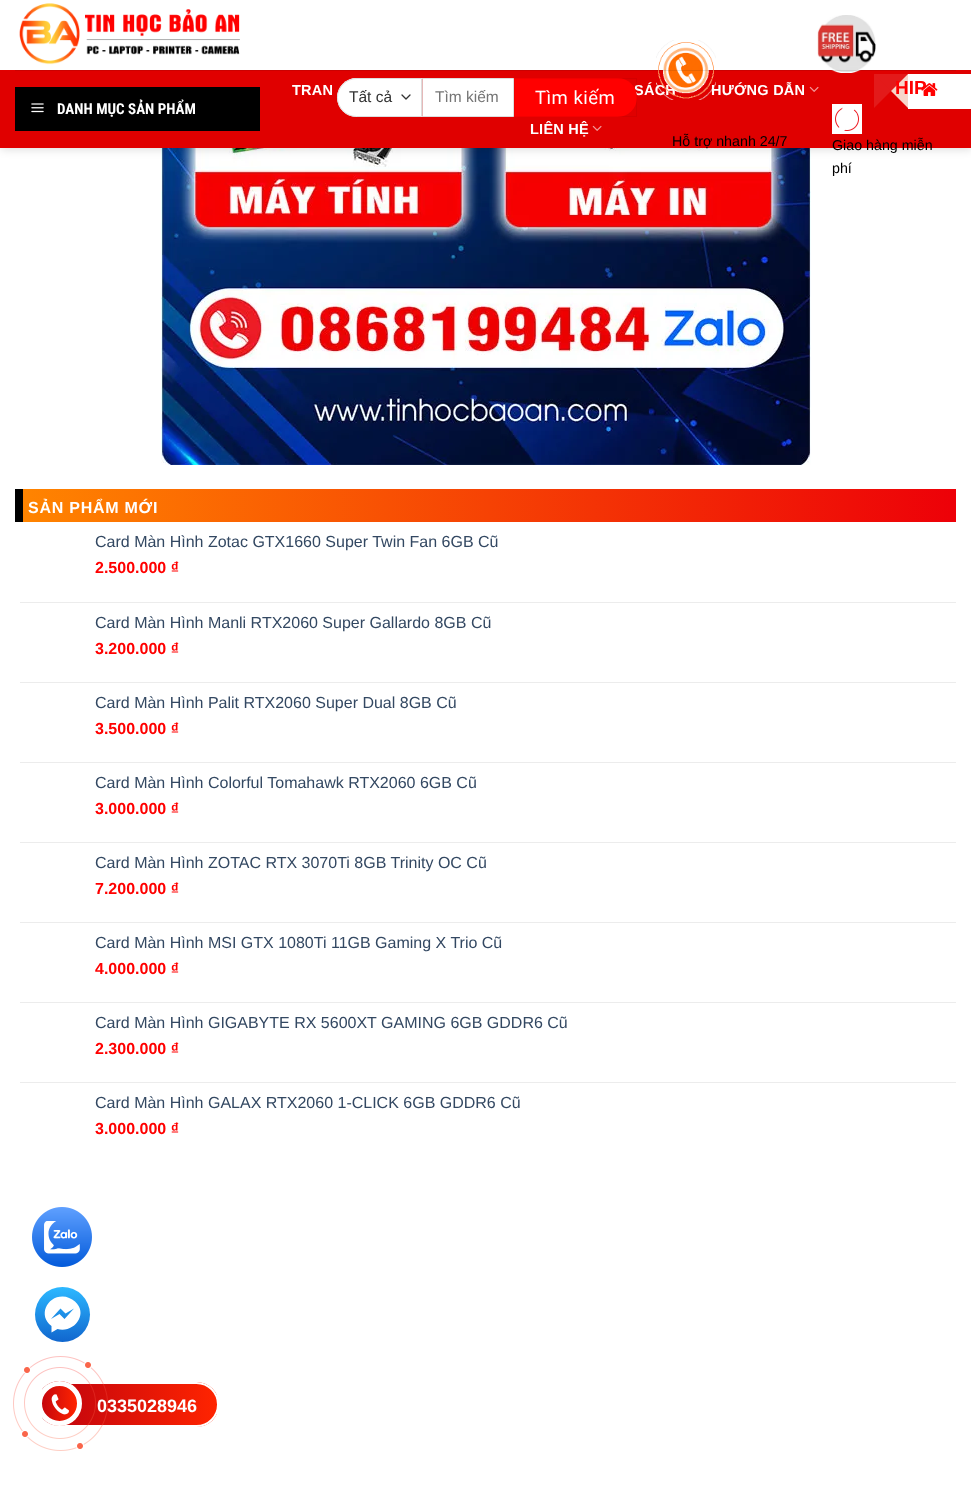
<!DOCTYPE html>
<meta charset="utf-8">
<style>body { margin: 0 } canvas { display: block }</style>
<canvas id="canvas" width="971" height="1492"></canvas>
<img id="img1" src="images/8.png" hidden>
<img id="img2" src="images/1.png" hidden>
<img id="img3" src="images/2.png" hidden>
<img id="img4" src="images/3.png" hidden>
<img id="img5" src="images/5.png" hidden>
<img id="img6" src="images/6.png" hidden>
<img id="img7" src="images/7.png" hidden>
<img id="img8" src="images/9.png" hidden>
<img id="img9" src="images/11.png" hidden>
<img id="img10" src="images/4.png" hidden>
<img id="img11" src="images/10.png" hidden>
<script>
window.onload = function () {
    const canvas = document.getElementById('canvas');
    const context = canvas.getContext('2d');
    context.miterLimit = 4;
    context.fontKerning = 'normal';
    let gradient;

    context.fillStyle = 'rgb(255, 255, 255)';
    context.fillRect(0, 0, 971, 1492);
    context.drawImage(document.getElementById('img1'), 161, 148, 650, 317);
    context.fillStyle = 'rgba(0, 0, 0, 0.15)';
    context.filter = 'blur(5px)';
    context.beginPath();
    context.rect(1, 1, 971, 148);
    context.fill();
    context.filter = 'none';
    context.fillStyle = 'rgb(255, 255, 255)';
    context.fillRect(0, 0, 971, 70);
    context.drawImage(document.getElementById('img2'), 19, 3, 221, 62);
    context.fillStyle = 'rgb(224, 0, 0)';
    context.fillRect(0, 70, 971, 78);
    context.fillStyle = 'rgb(255, 255, 255)';
    context.beginPath();
    context.roundRect(337, 78, 85, 39, [19.5, 0, 0, 19.5]);
    context.fill();
    context.beginPath();
    context.moveTo(402, 95);
    context.lineTo(406, 99);
    context.lineTo(410, 95);
    context.strokeStyle = 'rgb(51, 51, 51)';
    context.lineWidth = 1.3;
    context.lineCap = 'round';
    context.lineJoin = 'round';
    context.stroke();
    context.beginPath();
    context.roundRect(337.5, 78.5, 84, 38, [19, 0, 0, 19]);
    context.strokeStyle = 'rgb(221, 221, 221)';
    context.lineWidth = 1;
    context.lineJoin = 'miter';
    context.stroke();
    context.beginPath();
    context.rect(422.5, 78.5, 91, 38);
    context.fill();
    context.stroke();
    context.drawImage(document.getElementById('img3'), 817, 15, 59, 58);
    context.drawImage(document.getElementById('img4'), 832, 104, 30, 30);
    context.fillStyle = 'rgb(0, 0, 0)';
    context.fillRect(15, 87, 245, 44);
    context.drawImage(document.getElementById('img5'), 31, 103, 13, 10);
    context.drawImage(document.getElementById('img6'), 809, 86, 10, 6);
    context.drawImage(document.getElementById('img6'), 592, 125, 10, 6);
    context.fillStyle = 'rgb(255, 255, 255)';
    context.fillRect(908, 74, 63, 35);
    context.fillStyle = 'rgb(227, 26, 26)';
    context.beginPath();
    context.moveTo(874, 74);
    context.lineTo(908, 74);
    context.lineTo(891, 91);
    context.closePath();
    context.fill();
    context.fillStyle = 'rgb(247, 214, 202)';
    context.beginPath();
    context.moveTo(908, 74);
    context.lineTo(908, 108);
    context.lineTo(891, 91);
    context.closePath();
    context.fill();
    context.fillStyle = 'rgba(255, 255, 255, 0.1)';
    context.beginPath();
    context.moveTo(874, 108);
    context.lineTo(874, 74);
    context.lineTo(891, 91);
    context.closePath();
    context.fill();
    context.drawImage(document.getElementById('img7'), 921, 83, 17, 13);
    gradient = context.createLinearGradient(23, 506, 956, 505);
    gradient.addColorStop(0, 'rgb(255, 132, 0)');
    gradient.addColorStop(1, 'rgb(237, 0, 8)');
    context.fillStyle = gradient;
    context.fillRect(23, 489, 933, 33);
    context.fillStyle = 'rgb(0, 0, 0)';
    context.fillRect(15, 489, 8, 33);
    context.fillStyle = 'rgb(236, 236, 236)';
    context.fillRect(20, 602, 936, 1);
    context.fillRect(20, 682, 936, 1);
    context.fillRect(20, 762, 936, 1);
    context.fillRect(20, 842, 936, 1);
    context.fillRect(20, 922, 936, 1);
    context.fillRect(20, 1002, 936, 1);
    context.fillRect(20, 1082, 936, 1);
    context.drawImage(document.getElementById('img8'), 32, 1207, 60, 60);
    gradient = context.createLinearGradient(62, 1341, 62, 1288);
    gradient.addColorStop(0, 'rgb(17, 104, 207)');
    gradient.addColorStop(1, 'rgb(44, 183, 255)');
    context.fillStyle = gradient;
    context.beginPath();
    context.arc(62.5, 1314.5, 27.5, 0, 2 * Math.PI);
    context.fill();
    context.fillStyle = 'rgb(255, 255, 255)';
    context.beginPath();
    context.moveTo(62.5, 1296.5);
    context.bezierCurveTo(46.5, 1296.5, 38, 1316, 51.5, 1326);
    context.lineTo(51.5, 1332.5);
    context.lineTo(57.5, 1329);
    context.bezierCurveTo(74, 1333.5, 89, 1314, 75, 1301.5);
    context.bezierCurveTo(71.5, 1298.5, 67, 1296.5, 62.5, 1296.5);
    context.closePath();
    context.moveTo(64.5, 1319);
    context.lineTo(59.5, 1314);
    context.lineTo(51, 1319);
    context.lineTo(60.5, 1308.5);
    context.lineTo(65.5, 1313.5);
    context.lineTo(74, 1308.5);
    context.closePath();
    context.fill('evenodd');
    context.save();
    context.beginPath();
    context.roundRect(60, 1382, 159, 45, [0, 22.5, 22.5, 0]);
    context.clip();
    gradient = context.createLinearGradient(62, 1405, 217, 1405);
    gradient.addColorStop(0, 'rgb(197, 6, 13)');
    gradient.addColorStop(1, 'rgb(255, 36, 0)');
    context.fillStyle = gradient;
    context.fillRect(66, 1382, 151, 45);
    context.restore();
    context.beginPath();
    context.roundRect(61, 1383, 157, 43, [0, 21.5, 21.5, 0]);
    context.strokeStyle = 'rgb(255, 255, 255)';
    context.lineWidth = 2;
    context.stroke();
    context.save();
    context.beginPath();
    context.roundRect(37, 1381, 45, 45, 22.5);
    context.clip();
    gradient = context.createLinearGradient(42, 1404, 77, 1404);
    gradient.addColorStop(0, 'rgb(197, 6, 13)');
    gradient.addColorStop(1, 'rgb(255, 36, 0)');
    context.fillStyle = gradient;
    context.fillRect(42, 1381, 35, 45);
    context.restore();
    context.beginPath();
    context.arc(59.5, 1403.5, 20, 0, 2 * Math.PI);
    context.lineWidth = 5;
    context.stroke();
    context.drawImage(document.getElementById('img9'), 51, 1394, 18, 21);
    context.font = '15.5px Liberation Sans';
    context.fillStyle = 'rgb(51, 51, 51)';
    context.fillText('Tất cả', 349, 102);
    context.fillStyle = 'rgb(117, 117, 117)';
    context.fillText('Tìm kiếm', 435, 102);
    context.font = 'bold 19px Liberation Sans';
    context.fillStyle = 'rgb(255, 0, 0)';
    context.fillText('HIP', 895, 94);
    context.font = '14.25px Liberation Sans';
    context.fillStyle = 'rgb(0, 0, 0)';
    context.fillText('Giao hàng miễn', 832, 150);
    context.fillText('phí', 832, 173);
    context.fillText('Hỗ trợ nhanh 24/7', 672, 146);
    context.font = 'bold 15px Roboto Condensed';
    context.fillStyle = 'rgb(255, 255, 255)';
    context.fillText('DANH MỤC SẢN PHẨM', 57, 114);
    context.letterSpacing = '0.25px';
    context.font = 'bold 14.5px Liberation Sans';
    context.fillText('TRAN', 292, 95);
    context.fillText('SÁCH', 634, 95);
    context.fillStyle = 'rgb(255, 0, 0)';
    context.beginPath();
    context.roundRect(514, 78, 123, 39, [0, 19.5, 19.5, 0]);
    context.fill();
    context.strokeStyle = 'rgba(0, 0, 0, 0.05)';
    context.lineWidth = 1;
    context.strokeRect(514.5, 78.5, 122, 38);
    context.letterSpacing = '0.5px';
    context.font = '18.5px Roboto';
    context.fillStyle = 'rgb(255, 255, 255)';
    context.fillText('Tìm kiếm', 535, 104);
    context.letterSpacing = '0.25px';
    context.font = 'bold 14.5px Liberation Sans';
    context.fillText('HƯỚNG DẪN', 711, 95);
    context.drawImage(document.getElementById('img10'), 656, 40, 60, 60);
    context.fillStyle = 'rgba(10, 10, 10, 0.1)';
    context.fillRect(15, 70, 941, 1);
    context.fillStyle = 'rgb(255, 255, 255)';
    context.fillText('LIÊN HỆ', 530, 134);
    context.letterSpacing = '0.75px';
    context.font = 'bold 16px Liberation Sans';
    context.fillText('SẢN PHẨM MỚI', 28, 513);
    context.letterSpacing = '0px';
    context.font = '16px Liberation Sans';
    context.fillStyle = 'rgb(51, 72, 98)';
    context.fillText('Card Màn Hình Zotac GTX1660 Super Twin Fan 6GB Cũ', 95, 547);
    context.font = 'bold 16px Liberation Sans';
    context.fillStyle = 'rgb(255, 0, 0)';
    context.fillText('2.500.000 ₫', 95, 573);
    context.font = '16px Liberation Sans';
    context.fillStyle = 'rgb(51, 72, 98)';
    context.fillText('Card Màn Hình Manli RTX2060 Super Gallardo 8GB Cũ', 95, 628);
    context.font = 'bold 16px Liberation Sans';
    context.fillStyle = 'rgb(255, 0, 0)';
    context.fillText('3.200.000 ₫', 95, 654);
    context.font = '16px Liberation Sans';
    context.fillStyle = 'rgb(51, 72, 98)';
    context.fillText('Card Màn Hình Palit RTX2060 Super Dual 8GB Cũ', 95, 708);
    context.font = 'bold 16px Liberation Sans';
    context.fillStyle = 'rgb(255, 0, 0)';
    context.fillText('3.500.000 ₫', 95, 734);
    context.font = '16px Liberation Sans';
    context.fillStyle = 'rgb(51, 72, 98)';
    context.fillText('Card Màn Hình Colorful Tomahawk RTX2060 6GB Cũ', 95, 788);
    context.font = 'bold 16px Liberation Sans';
    context.fillStyle = 'rgb(255, 0, 0)';
    context.fillText('3.000.000 ₫', 95, 814);
    context.font = '16px Liberation Sans';
    context.fillStyle = 'rgb(51, 72, 98)';
    context.fillText('Card Màn Hình ZOTAC RTX 3070Ti 8GB Trinity OC Cũ', 95, 868);
    context.font = 'bold 16px Liberation Sans';
    context.fillStyle = 'rgb(255, 0, 0)';
    context.fillText('7.200.000 ₫', 95, 894);
    context.font = '16px Liberation Sans';
    context.fillStyle = 'rgb(51, 72, 98)';
    context.fillText('Card Màn Hình MSI GTX 1080Ti 11GB Gaming X Trio Cũ', 95, 948);
    context.font = 'bold 16px Liberation Sans';
    context.fillStyle = 'rgb(255, 0, 0)';
    context.fillText('4.000.000 ₫', 95, 974);
    context.font = '16px Liberation Sans';
    context.fillStyle = 'rgb(51, 72, 98)';
    context.fillText('Card Màn Hình GIGABYTE RX 5600XT GAMING 6GB GDDR6 Cũ', 95, 1028);
    context.font = 'bold 16px Liberation Sans';
    context.fillStyle = 'rgb(255, 0, 0)';
    context.fillText('2.300.000 ₫', 95, 1054);
    context.font = '16px Liberation Sans';
    context.fillStyle = 'rgb(51, 72, 98)';
    context.fillText('Card Màn Hình GALAX RTX2060 1-CLICK 6GB GDDR6 Cũ', 95, 1108);
    context.font = 'bold 16px Liberation Sans';
    context.fillStyle = 'rgb(255, 0, 0)';
    context.fillText('3.000.000 ₫', 95, 1134);
    context.font = 'bold 18px Liberation Sans';
    context.fillStyle = 'rgb(255, 255, 255)';
    context.fillText('0335028946', 97, 1412);
    context.drawImage(document.getElementById('img11'), 13, 1356, 95, 95);
};
</script>
